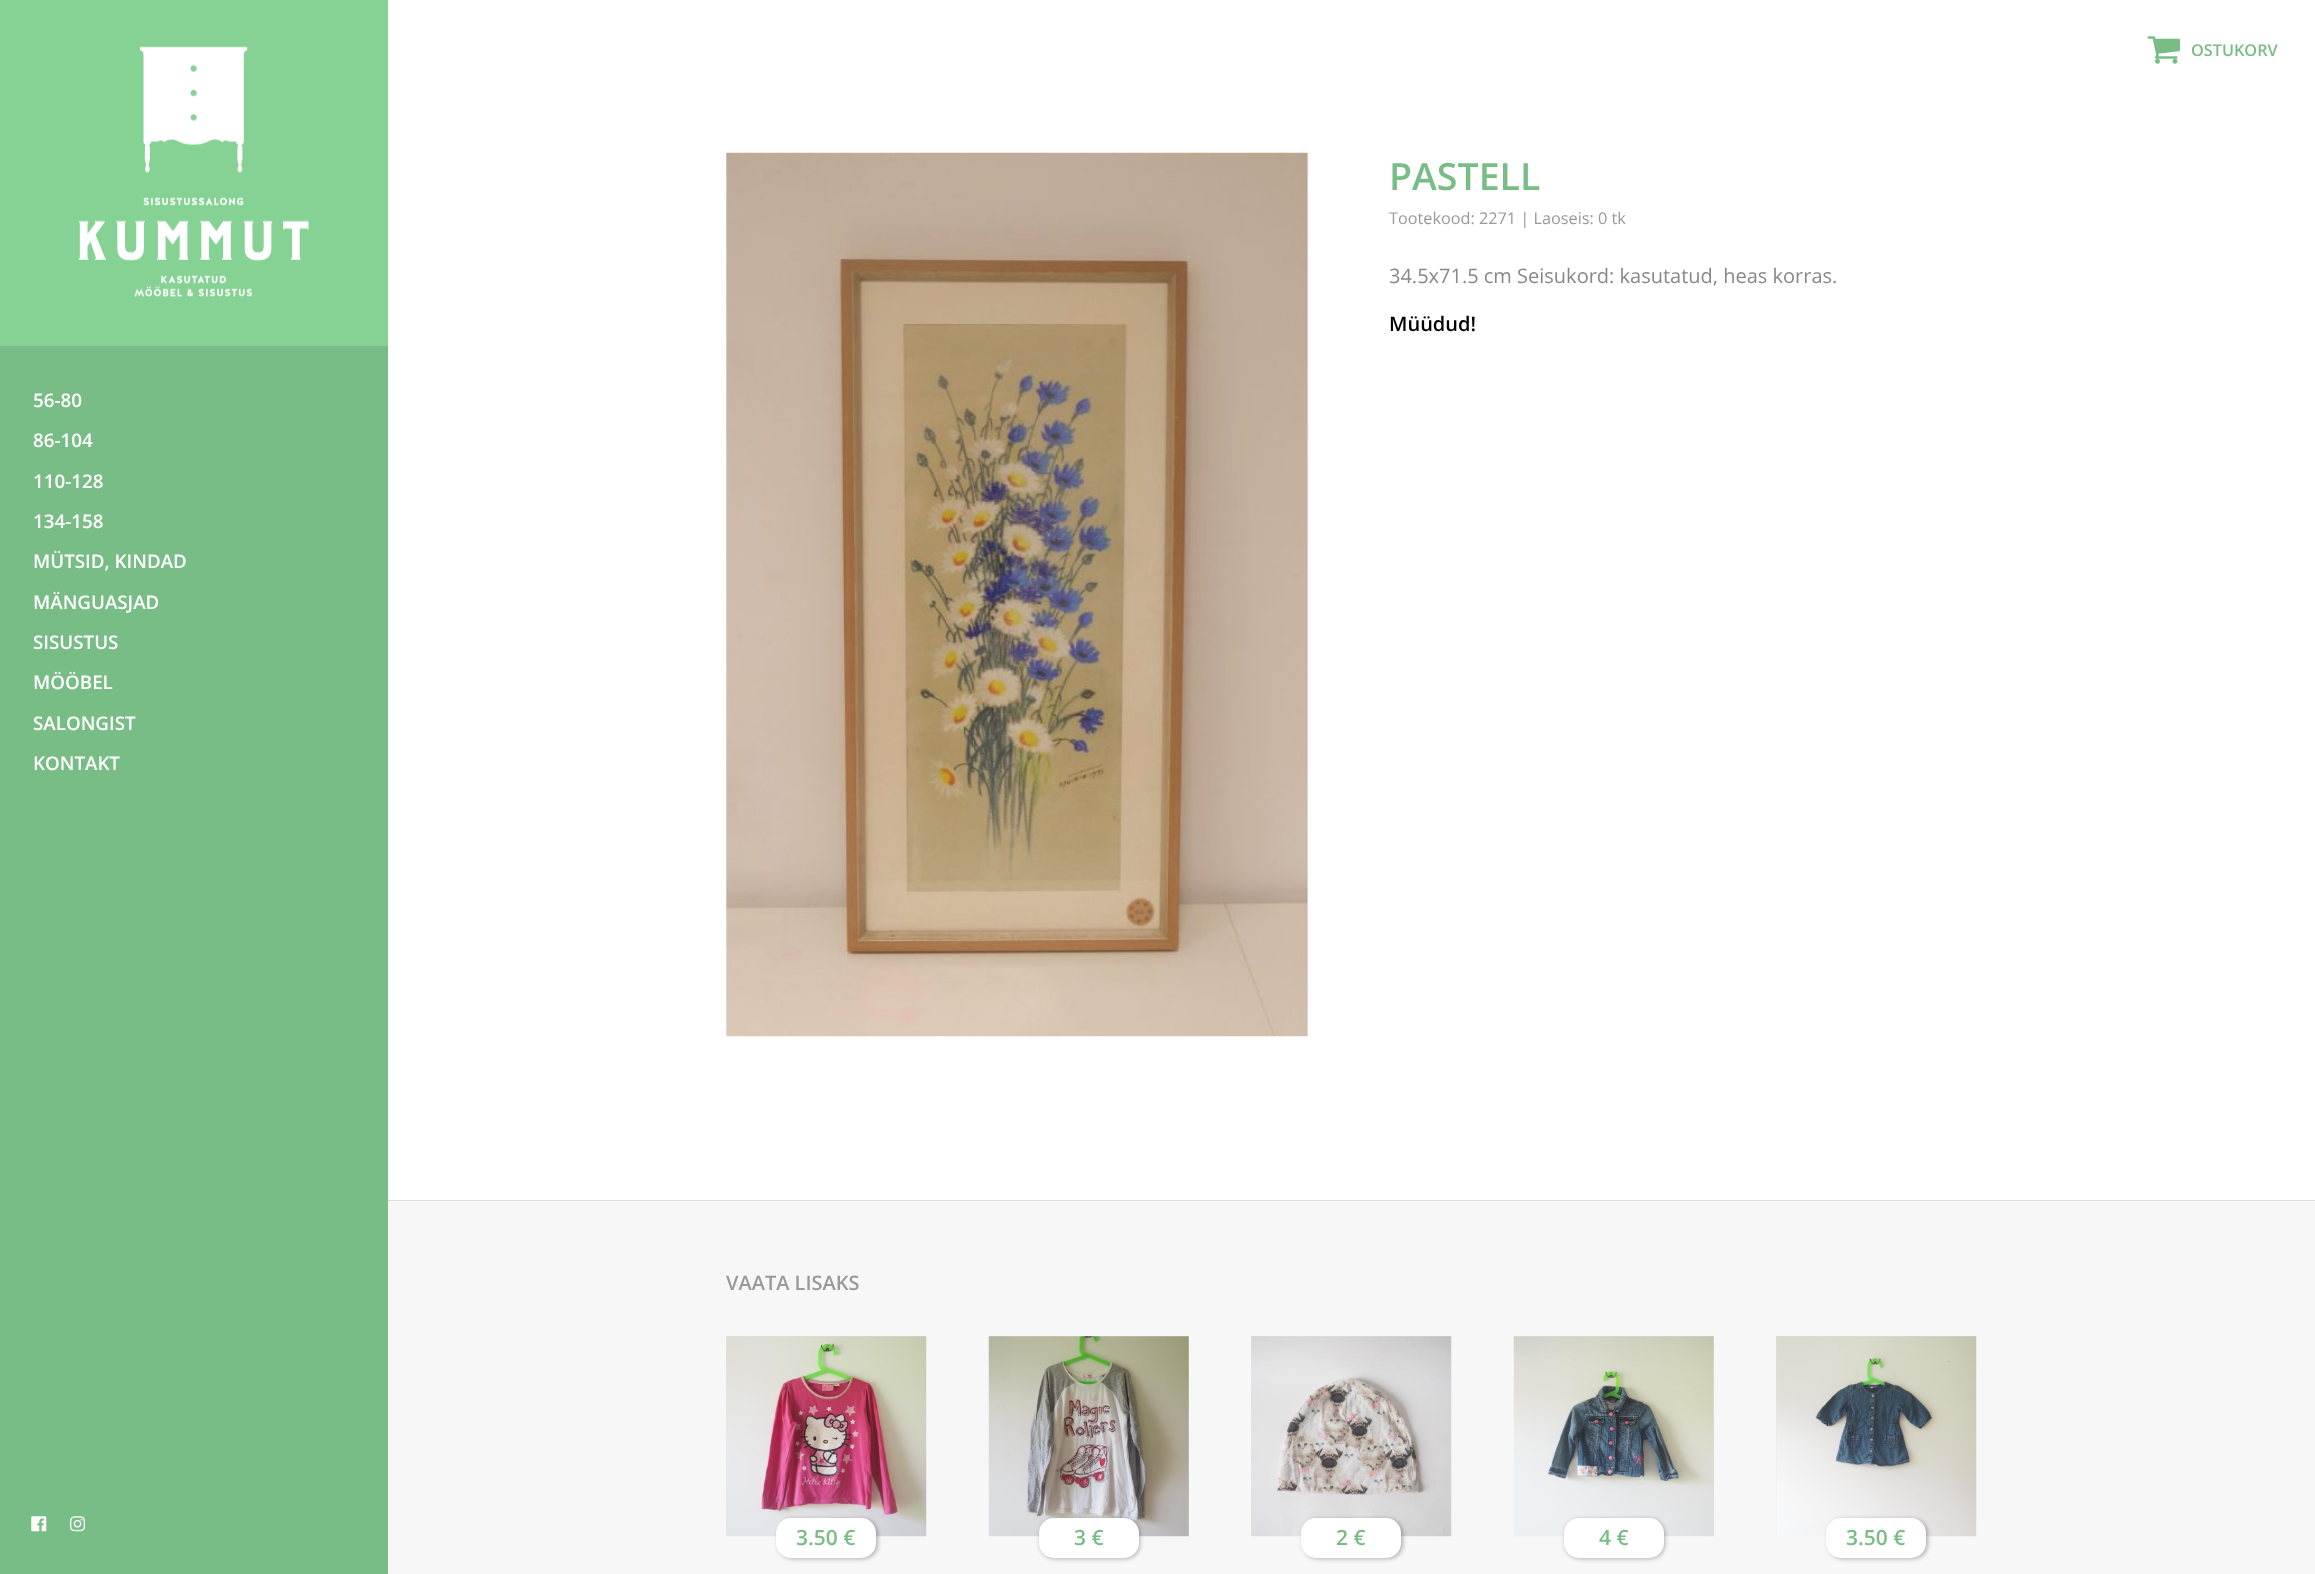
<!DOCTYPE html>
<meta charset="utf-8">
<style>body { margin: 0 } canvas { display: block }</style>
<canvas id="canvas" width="2315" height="1574"></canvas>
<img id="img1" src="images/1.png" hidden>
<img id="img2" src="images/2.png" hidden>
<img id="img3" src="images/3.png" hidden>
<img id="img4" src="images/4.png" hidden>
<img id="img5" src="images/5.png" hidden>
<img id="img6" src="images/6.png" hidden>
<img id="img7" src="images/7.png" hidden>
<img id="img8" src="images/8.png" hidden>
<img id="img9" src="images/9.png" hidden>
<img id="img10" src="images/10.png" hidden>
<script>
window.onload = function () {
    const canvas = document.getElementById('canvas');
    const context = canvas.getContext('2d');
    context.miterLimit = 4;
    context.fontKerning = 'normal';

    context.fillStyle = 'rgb(255, 255, 255)';
    context.fillRect(0, 0, 2315, 1574);
    context.drawImage(document.getElementById('img1'), 2147, 36, 33, 28);
    context.fillStyle = 'rgb(121, 189, 134)';
    context.fillRect(0, 346, 388, 1228);
    context.fillStyle = 'rgb(134, 210, 149)';
    context.fillRect(0, 0, 388, 346);
    context.drawImage(document.getElementById('img2'), 78, 46, 231, 251);
    context.drawImage(document.getElementById('img3'), 31, 1516, 16, 16);
    context.drawImage(document.getElementById('img4'), 70, 1516, 15, 16);
    context.fillStyle = 'rgb(232, 234, 236)';
    context.fillRect(726, 153, 582, 883);
    context.drawImage(document.getElementById('img5'), 726, 152, 582, 885);
    context.fillStyle = 'rgb(247, 247, 247)';
    context.fillRect(388, 1201, 1927, 373);
    context.fillStyle = 'rgb(221, 221, 221)';
    context.fillRect(388, 1200, 1927, 1);
    context.fillStyle = 'rgb(223, 232, 224)';
    context.fillRect(726, 1336, 200, 200);
    context.drawImage(document.getElementById('img6'), 726, 1336, 201, 201);
    context.fillStyle = 'rgba(0, 0, 0, 0.28)';
    context.filter = 'blur(2px)';
    context.beginPath();
    context.roundRect(778, 1519, 100, 40, 15);
    context.fill();
    context.filter = 'none';
    context.fillStyle = 'rgb(255, 255, 255)';
    context.beginPath();
    context.roundRect(776, 1518, 100, 40, 15);
    context.fill();
    context.fillStyle = 'rgb(223, 232, 224)';
    context.fillRect(989, 1336, 200, 200);
    context.drawImage(document.getElementById('img7'), 988, 1336, 201, 201);
    context.fillStyle = 'rgba(0, 0, 0, 0.28)';
    context.filter = 'blur(2px)';
    context.beginPath();
    context.roundRect(1040, 1519, 100, 40, 15);
    context.fill();
    context.filter = 'none';
    context.fillStyle = 'rgb(255, 255, 255)';
    context.beginPath();
    context.roundRect(1039, 1518, 100, 40, 15);
    context.fill();
    context.fillStyle = 'rgb(223, 232, 224)';
    context.fillRect(1251, 1336, 200, 200);
    context.drawImage(document.getElementById('img8'), 1251, 1336, 201, 201);
    context.fillStyle = 'rgba(0, 0, 0, 0.28)';
    context.filter = 'blur(2px)';
    context.beginPath();
    context.roundRect(1303, 1519, 100, 40, 15);
    context.fill();
    context.filter = 'none';
    context.fillStyle = 'rgb(255, 255, 255)';
    context.beginPath();
    context.roundRect(1301, 1518, 100, 40, 15);
    context.fill();
    context.fillStyle = 'rgb(223, 232, 224)';
    context.fillRect(1514, 1336, 200, 200);
    context.drawImage(document.getElementById('img9'), 1513, 1336, 201, 201);
    context.fillStyle = 'rgba(0, 0, 0, 0.28)';
    context.filter = 'blur(2px)';
    context.beginPath();
    context.roundRect(1565, 1519, 100, 40, 15);
    context.fill();
    context.filter = 'none';
    context.fillStyle = 'rgb(255, 255, 255)';
    context.beginPath();
    context.roundRect(1564, 1518, 100, 40, 15);
    context.fill();
    context.fillStyle = 'rgb(223, 232, 224)';
    context.fillRect(1776, 1336, 200, 200);
    context.drawImage(document.getElementById('img10'), 1776, 1336, 201, 201);
    context.fillStyle = 'rgba(0, 0, 0, 0.28)';
    context.filter = 'blur(2px)';
    context.beginPath();
    context.roundRect(1828, 1519, 100, 40, 15);
    context.fill();
    context.filter = 'none';
    context.fillStyle = 'rgb(255, 255, 255)';
    context.beginPath();
    context.roundRect(1826, 1518, 100, 40, 15);
    context.fill();
    context.font = '600 16.25px Open Sans';
    context.fillStyle = 'rgb(121, 189, 134)';
    context.fillText('OSTUKORV', 2191, 56);
    context.font = '600 18.75px Open Sans';
    context.fillStyle = 'rgb(255, 255, 255)';
    context.fillText('56-80', 33, 407);
    context.fillText('86-104', 33, 447);
    context.fillText('110-128', 33, 488);
    context.fillText('134-158', 33, 528);
    context.fillText('MÜTSID, KINDAD', 33, 568);
    context.fillText('MÄNGUASJAD', 33, 609);
    context.fillText('SISUSTUS', 33, 649);
    context.fillText('MÖÖBEL', 33, 689);
    context.fillText('SALONGIST', 33, 730);
    context.fillText('KONTAKT', 33, 770);
    context.font = '600 37.5px Open Sans';
    context.fillStyle = 'rgb(121, 189, 134)';
    context.fillText('PASTELL', 1389, 190);
    context.font = '16.25px Open Sans';
    context.fillStyle = 'rgb(153, 153, 153)';
    context.fillText('Tootekood: 2271 | Laoseis: 0 tk', 1389, 224);
    context.font = '20px Open Sans';
    context.fillStyle = 'rgb(136, 136, 136)';
    context.fillText('34.5x71.5 cm Seisukord: kasutatud, heas korras.', 1389, 283);
    context.font = '600 20px Open Sans';
    context.fillStyle = 'rgb(0, 0, 0)';
    context.fillText('Müüdud!', 1389, 331);
    context.fillStyle = 'rgb(153, 153, 153)';
    context.fillText('VAATA LISAKS', 726, 1290);
    context.font = '600 21px Open Sans';
    context.fillStyle = 'rgb(121, 189, 134)';
    context.fillText('3.50 €', 796, 1545);
    context.fillText('3 €', 1074, 1545);
    context.fillText('2 €', 1336, 1545);
    context.fillText('4 €', 1599, 1545);
    context.fillText('3.50 €', 1846, 1545);
};
</script>
